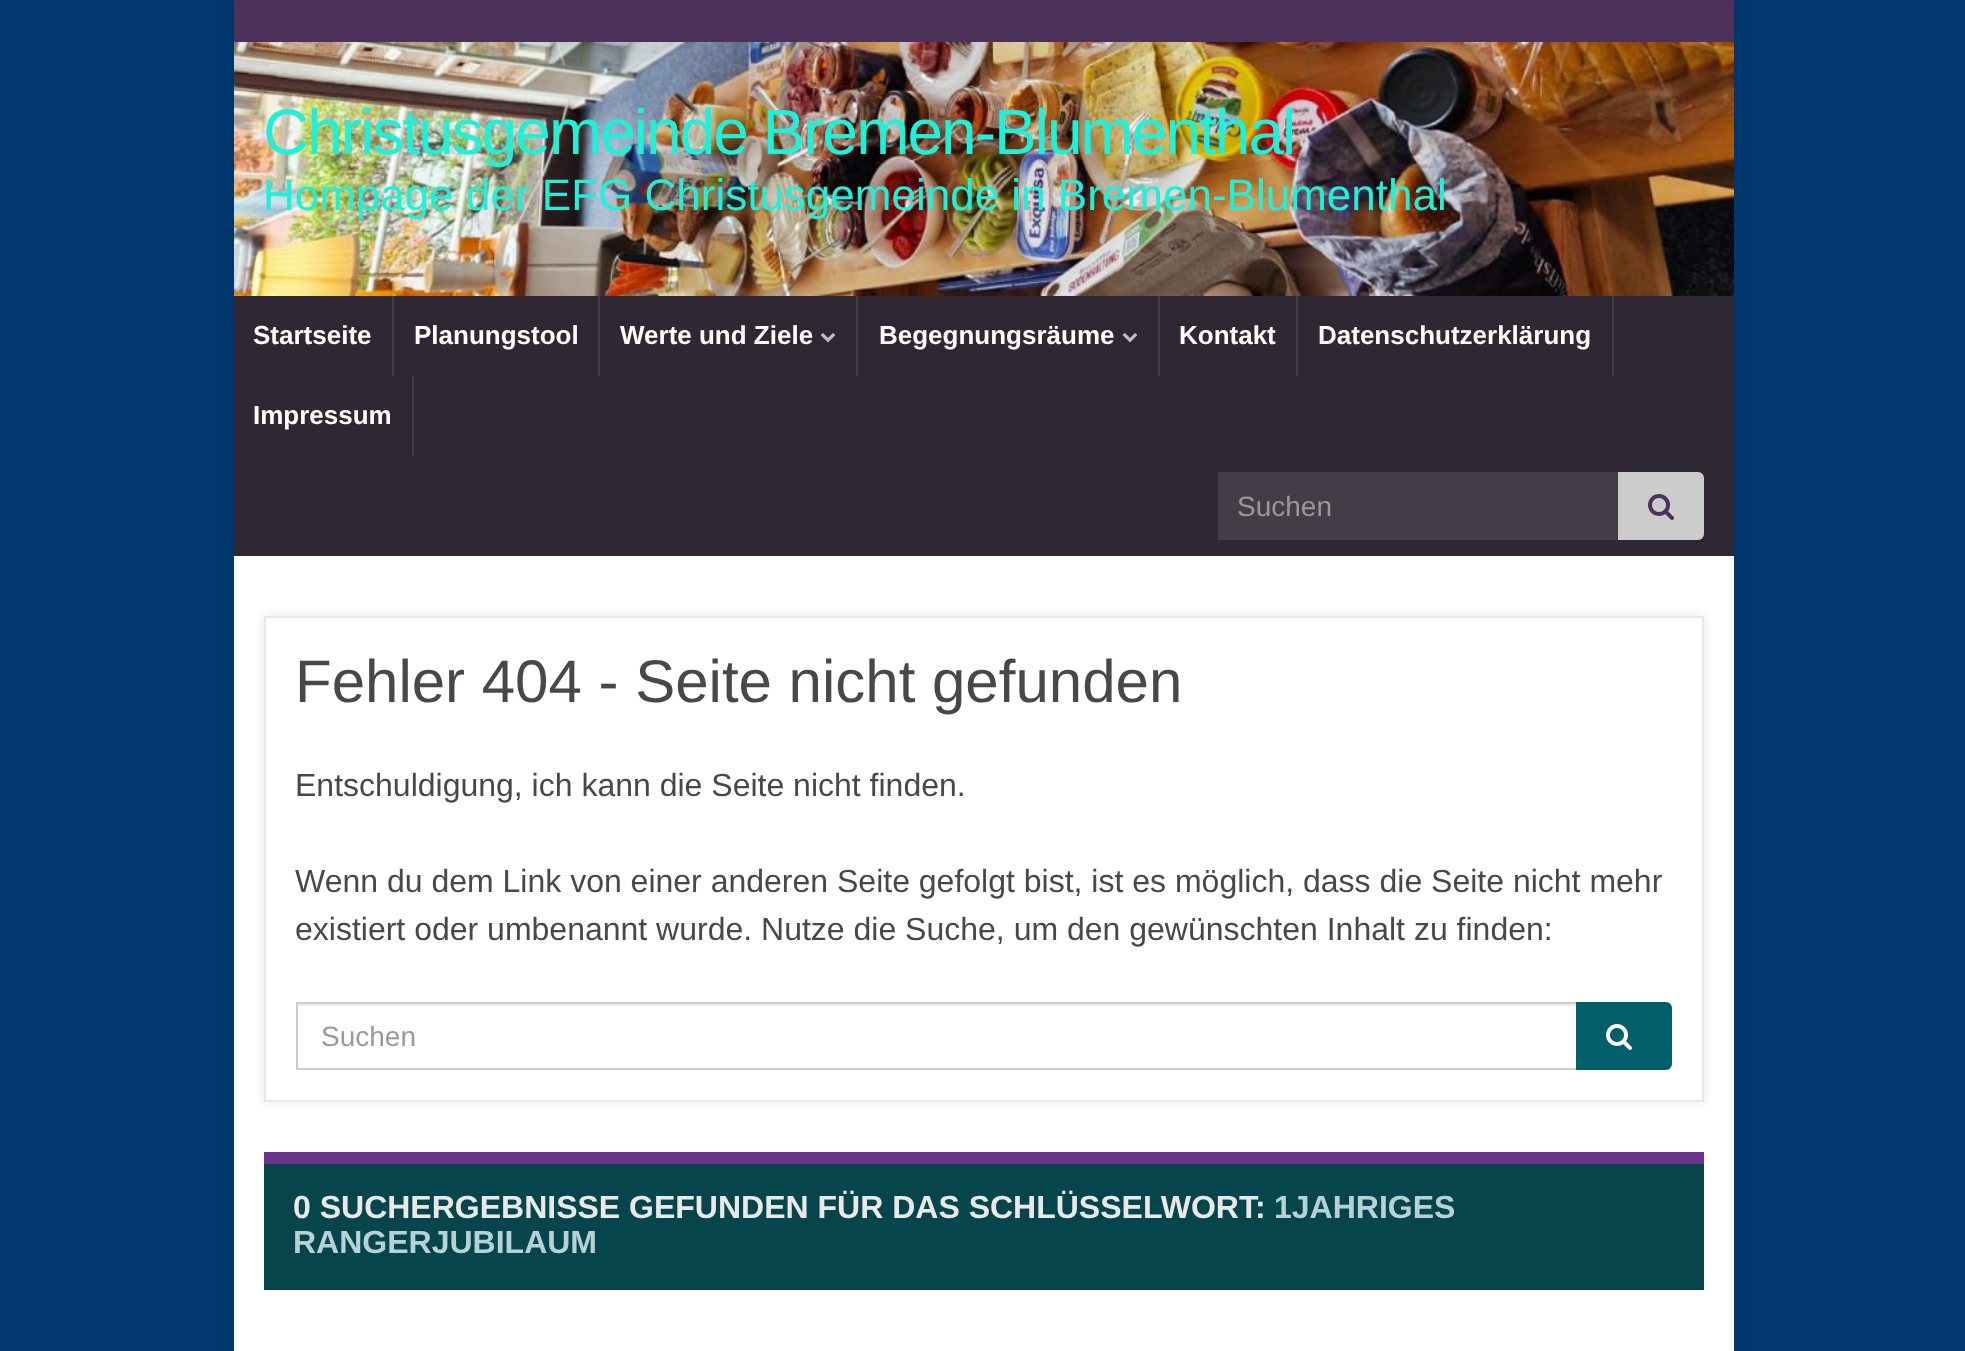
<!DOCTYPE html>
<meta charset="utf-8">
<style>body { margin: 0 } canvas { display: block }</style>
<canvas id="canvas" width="1965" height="1351"></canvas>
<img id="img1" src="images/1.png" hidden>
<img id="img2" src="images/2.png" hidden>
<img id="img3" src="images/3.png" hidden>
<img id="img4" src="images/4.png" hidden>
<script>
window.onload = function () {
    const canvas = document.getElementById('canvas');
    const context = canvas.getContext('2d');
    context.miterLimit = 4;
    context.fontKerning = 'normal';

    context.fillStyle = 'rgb(2, 57, 112)';
    context.fillRect(0, 0, 1965, 1351);
    context.fillStyle = 'rgba(0, 0, 0, 0.1)';
    context.filter = 'blur(10px)';
    context.beginPath();
    context.rect(234, 0, 1500, 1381);
    context.fill();
    context.filter = 'none';
    context.fillStyle = 'rgb(76, 49, 90)';
    context.fillRect(234, 0, 1500, 42);
    context.drawImage(document.getElementById('img1'), 234, 42, 1500, 254);
    context.fillStyle = 'rgb(47, 39, 51)';
    context.fillRect(234, 296, 1500, 260);
    context.fillStyle = 'rgb(68, 61, 71)';
    context.fillRect(392, 296, 2, 80);
    context.fillRect(598, 296, 2, 80);
    context.fillRect(856, 296, 2, 80);
    context.drawImage(document.getElementById('img2'), 820, 333, 16, 10);
    context.fillRect(1158, 296, 2, 80);
    context.drawImage(document.getElementById('img2'), 1122, 333, 16, 10);
    context.fillRect(1296, 296, 2, 80);
    context.fillRect(1612, 296, 2, 80);
    context.fillRect(412, 376, 2, 80);
    context.fillRect(1218, 472, 400, 68);
    context.fillStyle = 'rgb(204, 204, 204)';
    context.beginPath();
    context.roundRect(1618, 472, 86, 68, [0, 6, 6, 0]);
    context.fill();
    context.drawImage(document.getElementById('img3'), 1648, 494, 26, 26);
    context.fillStyle = 'rgb(255, 255, 255)';
    context.fillRect(234, 556, 1500, 795);
    context.save();
    context.beginPath();
    context.moveTo(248, 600);
    context.lineTo(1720, 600);
    context.lineTo(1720, 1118);
    context.lineTo(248, 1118);
    context.closePath();
    context.moveTo(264, 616);
    context.lineTo(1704, 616);
    context.lineTo(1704, 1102);
    context.lineTo(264, 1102);
    context.closePath();
    context.clip('evenodd');
    context.fillStyle = 'rgba(0, 0, 0, 0.1)';
    context.filter = 'blur(5px)';
    context.beginPath();
    context.rect(264, 616, 1440, 486);
    context.fill();
    context.filter = 'none';
    context.restore();
    context.strokeStyle = 'rgb(233, 232, 227)';
    context.lineWidth = 2;
    context.strokeRect(265, 617, 1438, 484);
    context.fillStyle = 'rgb(236, 236, 236)';
    context.fillRect(298, 1004, 1278, 2);
    context.strokeStyle = 'rgb(204, 204, 204)';
    context.strokeRect(297, 1003, 1280, 66);
    context.fillStyle = 'rgb(0, 95, 107)';
    context.beginPath();
    context.roundRect(1576, 1002, 96, 68, [0, 6, 6, 0]);
    context.fill();
    context.drawImage(document.getElementById('img4'), 1606, 1024, 26, 26);
    context.fillStyle = 'rgb(6, 69, 76)';
    context.fillRect(264, 1164, 1440, 126);
    context.fillStyle = 'rgb(107, 53, 137)';
    context.fillRect(264, 1152, 1440, 12);
    context.letterSpacing = '-2px';
    context.font = '64px Liberation Sans';
    context.fillStyle = 'rgb(33, 239, 215)';
    context.fillText('Christusgemeinde Bremen-Blumenthal', 263, 154);
    context.letterSpacing = '0px';
    context.font = '44px Liberation Sans';
    context.fillText('Hompage der EFG Christusgemeinde in Bremen-Blumenthal', 263, 210);
    context.font = 'bold 26px Liberation Sans';
    context.fillStyle = 'rgb(255, 255, 255)';
    context.fillText('Startseite', 253, 344);
    context.fillText('Planungstool', 414, 344);
    context.fillText('Werte und Ziele', 620, 344);
    context.fillText('Begegnungsräume', 879, 344);
    context.fillText('Kontakt', 1179, 344);
    context.fillText('Datenschutzerklärung', 1318, 344);
    context.fillText('Impressum', 253, 424);
    context.font = '28px Liberation Sans';
    context.fillStyle = 'rgb(153, 153, 153)';
    context.fillText('Suchen', 1237, 516);
    context.font = '60px Liberation Sans';
    context.fillStyle = 'rgb(74, 71, 75)';
    context.fillText('Fehler 404 - Seite nicht gefunden', 295, 702);
    context.font = '32px Liberation Sans';
    context.fillText('Entschuldigung, ich kann die Seite nicht finden.', 295, 796);
    context.fillText('Wenn du dem Link von einer anderen Seite gefolgt bist, ist es möglich, dass die Seite nicht mehr', 295, 892);
    context.fillText('existiert oder umbenannt wurde. Nutze die Suche, um den gewünschten Inhalt zu finden:', 295, 940);
    context.font = '28px Liberation Sans';
    context.fillStyle = 'rgb(153, 153, 153)';
    context.fillText('Suchen', 321, 1046);
    context.font = 'bold 32px Liberation Sans';
    context.fillStyle = 'rgb(234, 233, 233)';
    context.fillText('0 SUCHERGEBNISSE GEFUNDEN FÜR DAS SCHLÜSSELWORT:', 293, 1218);
    context.fillStyle = 'rgb(182, 210, 213)';
    context.fillText('1JAHRIGES', 1274, 1218);
    context.fillText('RANGERJUBILAUM', 293, 1253);
};
</script>
